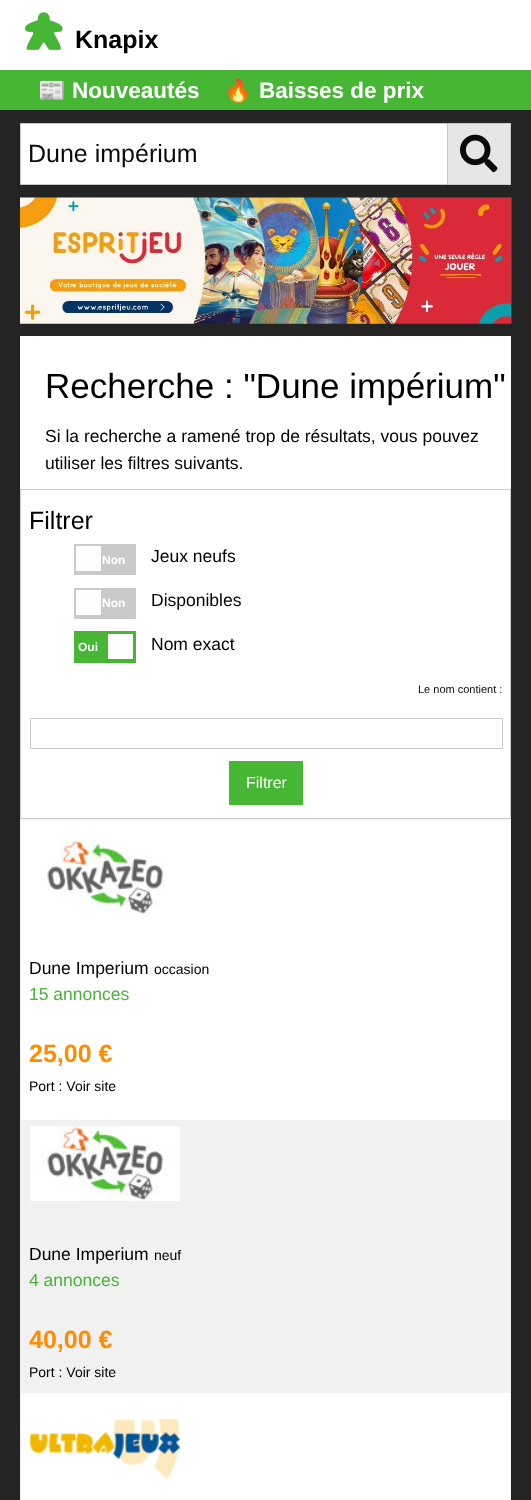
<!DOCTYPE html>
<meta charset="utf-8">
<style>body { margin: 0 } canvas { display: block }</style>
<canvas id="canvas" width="531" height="1500"></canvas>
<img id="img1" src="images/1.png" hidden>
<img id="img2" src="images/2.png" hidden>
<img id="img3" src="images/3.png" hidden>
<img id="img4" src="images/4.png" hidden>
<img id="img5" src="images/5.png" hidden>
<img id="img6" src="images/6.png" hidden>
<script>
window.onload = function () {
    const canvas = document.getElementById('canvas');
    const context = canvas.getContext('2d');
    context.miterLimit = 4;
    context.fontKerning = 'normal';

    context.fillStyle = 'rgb(255, 255, 255)';
    context.fillRect(0, 0, 531, 1500);
    context.drawImage(document.getElementById('img1'), 25, 12, 38, 38);
    context.fillStyle = 'rgb(71, 182, 53)';
    context.fillRect(0, 70, 531, 40);
    context.fillStyle = 'rgb(36, 36, 37)';
    context.fillRect(0, 110, 531, 1390);
    context.fillStyle = 'rgb(255, 255, 255)';
    context.beginPath();
    context.rect(20.5, 123.5, 427, 61);
    context.fill();
    context.strokeStyle = 'rgb(202, 202, 202)';
    context.stroke();
    context.fillStyle = 'rgb(230, 230, 230)';
    context.fillRect(448, 124, 62, 60);
    context.fillStyle = 'rgb(202, 202, 202)';
    context.fillRect(448, 123, 63, 1);
    context.fillRect(510, 123, 1, 62);
    context.fillRect(448, 184, 63, 1);
    context.drawImage(document.getElementById('img2'), 460, 134, 38, 39);
    context.drawImage(document.getElementById('img3'), 20, 197, 492, 127);
    context.fillStyle = 'rgb(255, 255, 255)';
    context.fillRect(20, 336, 491, 1164);
    context.strokeStyle = 'rgb(204, 204, 204)';
    context.strokeRect(20.5, 489.5, 490, 329);
    context.fillStyle = 'rgb(202, 202, 202)';
    context.fillRect(74, 544, 62, 31);
    context.fillStyle = 'rgb(254, 254, 254)';
    context.fillRect(76, 546, 25, 25);
    context.fillStyle = 'rgb(202, 202, 202)';
    context.fillRect(74, 588, 62, 31);
    context.fillStyle = 'rgb(254, 254, 254)';
    context.fillRect(76, 590, 25, 25);
    context.fillStyle = 'rgb(71, 182, 53)';
    context.fillRect(74, 631, 62, 32);
    context.fillStyle = 'rgb(254, 254, 254)';
    context.fillRect(108, 634, 25, 25);
    context.strokeStyle = 'rgb(202, 202, 202)';
    context.strokeRect(30.5, 718.5, 472, 30);
    context.fillStyle = 'rgb(71, 182, 53)';
    context.fillRect(229, 761, 74, 44);
    context.fillStyle = 'rgb(241, 241, 241)';
    context.fillRect(20, 819, 491, 1);
    context.fillRect(510, 819, 1, 681);
    context.fillRect(20, 819, 1, 681);
    context.drawImage(document.getElementById('img4'), 47, 840, 118, 74);
    context.fillRect(21, 1120, 489, 273);
    context.drawImage(document.getElementById('img5'), 30, 1126, 150, 75);
    context.drawImage(document.getElementById('img6'), 30, 1418, 150, 61);
    context.font = 'bold 25px Liberation Sans';
    context.fillStyle = 'rgb(0, 0, 0)';
    context.fillText('Knapix', 75, 48);
    context.font = 'bold 22.5px Noto Color Emoji';
    context.fillStyle = 'rgb(255, 255, 255)';
    context.fillText('📰', 38, 98);
    context.font = 'bold 22.5px Liberation Sans';
    context.fillText('Nouveautés', 72, 98);
    context.font = 'bold 22.5px Noto Color Emoji';
    context.fillText('🔥', 224, 98);
    context.font = 'bold 22.5px Liberation Sans';
    context.fillText('Baisses de prix', 259, 98);
    context.font = '25px Liberation Sans';
    context.fillStyle = 'rgb(10, 10, 10)';
    context.fillText('Dune impérium', 28, 162);
    context.font = '35px Liberation Sans';
    context.fillStyle = 'rgb(0, 0, 0)';
    context.fillText('Recherche : "Dune impérium"', 45, 398);
    context.font = '17.5px Liberation Sans';
    context.fillText('Si la recherche a ramené trop de résultats, vous pouvez', 45, 442);
    context.fillText('utiliser les filtres suivants.', 45, 469);
    context.font = '25px Liberation Sans';
    context.fillText('Filtrer', 29, 529);
    context.font = 'bold 12px Liberation Sans';
    context.fillStyle = 'rgb(255, 255, 255)';
    context.fillText('Non', 102, 564);
    context.font = '17.5px Liberation Sans';
    context.fillStyle = 'rgb(0, 0, 0)';
    context.fillText('Jeux neufs', 151, 562);
    context.font = 'bold 12px Liberation Sans';
    context.fillStyle = 'rgb(255, 255, 255)';
    context.fillText('Non', 102, 607);
    context.font = '17.5px Liberation Sans';
    context.fillStyle = 'rgb(0, 0, 0)';
    context.fillText('Disponibles', 151, 606);
    context.font = 'bold 12px Liberation Sans';
    context.fillStyle = 'rgb(255, 255, 255)';
    context.fillText('Oui', 78, 651);
    context.font = '17.5px Liberation Sans';
    context.fillStyle = 'rgb(0, 0, 0)';
    context.fillText('Nom exact', 151, 650);
    context.font = '11px Liberation Sans';
    context.fillStyle = 'rgb(10, 10, 10)';
    context.fillText('Le nom contient :', 418, 693);
    context.font = '16px Liberation Sans';
    context.fillStyle = 'rgb(255, 255, 255)';
    context.fillText('Filtrer', 246, 788);
    context.font = '17.5px Liberation Sans';
    context.fillStyle = 'rgb(0, 0, 0)';
    context.fillText('Dune Imperium', 29, 974);
    context.font = '14px Liberation Sans';
    context.fillText('occasion', 154, 974);
    context.font = '17.5px Liberation Sans';
    context.fillStyle = 'rgb(71, 182, 53)';
    context.fillText('15 annonces', 29, 1000);
    context.font = 'bold 25px Liberation Sans';
    context.fillStyle = 'rgb(255, 140, 0)';
    context.fillText('25,00 €', 29, 1062);
    context.font = '14px Liberation Sans';
    context.fillStyle = 'rgb(0, 0, 0)';
    context.fillText('Port : Voir site', 29, 1091);
    context.font = '17.5px Liberation Sans';
    context.fillText('Dune Imperium', 29, 1260);
    context.font = '14px Liberation Sans';
    context.fillText('neuf', 154, 1260);
    context.font = '17.5px Liberation Sans';
    context.fillStyle = 'rgb(71, 182, 53)';
    context.fillText('4 annonces', 29, 1286);
    context.font = 'bold 25px Liberation Sans';
    context.fillStyle = 'rgb(255, 140, 0)';
    context.fillText('40,00 €', 29, 1348);
    context.font = '14px Liberation Sans';
    context.fillStyle = 'rgb(0, 0, 0)';
    context.fillText('Port : Voir site', 29, 1377);
};
</script>
